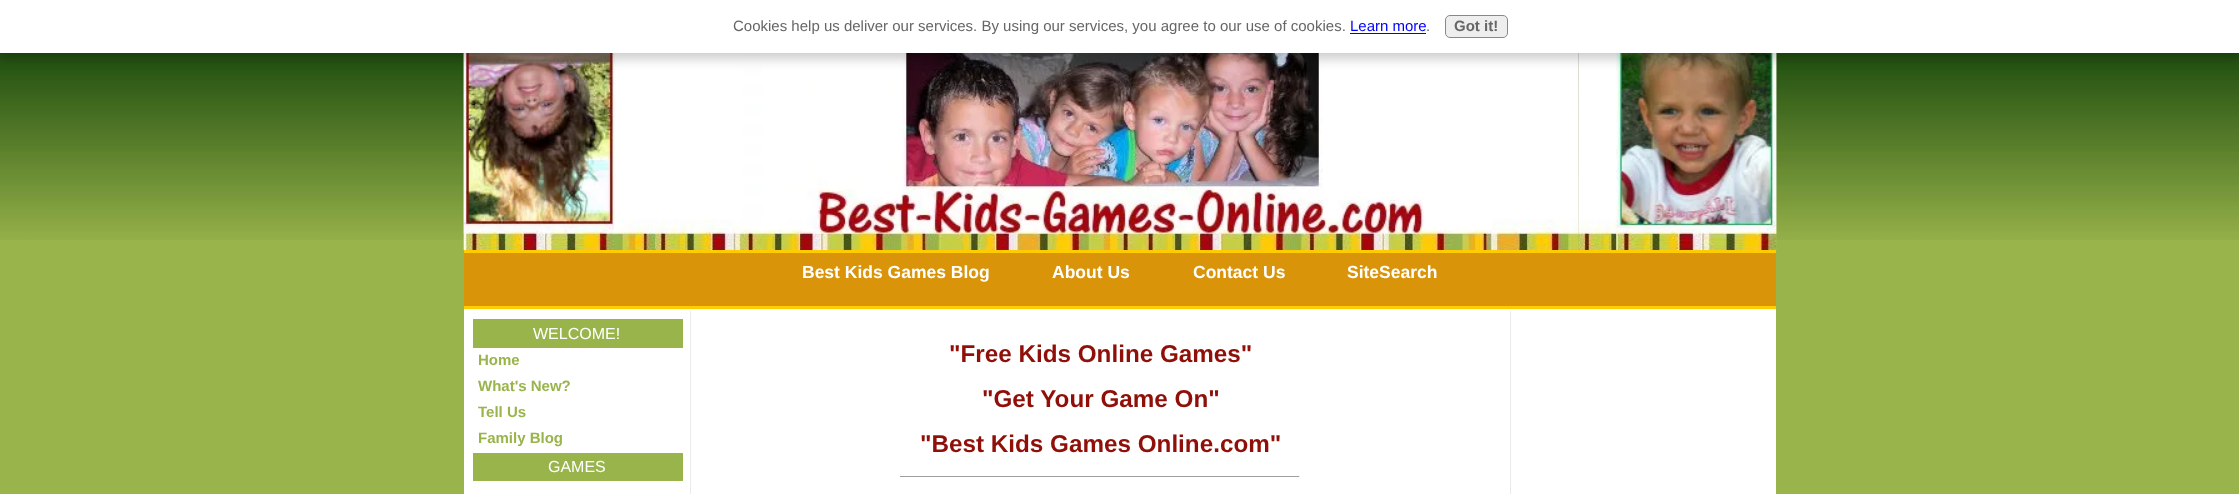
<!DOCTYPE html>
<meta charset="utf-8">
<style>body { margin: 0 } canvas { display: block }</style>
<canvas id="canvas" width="2239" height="494"></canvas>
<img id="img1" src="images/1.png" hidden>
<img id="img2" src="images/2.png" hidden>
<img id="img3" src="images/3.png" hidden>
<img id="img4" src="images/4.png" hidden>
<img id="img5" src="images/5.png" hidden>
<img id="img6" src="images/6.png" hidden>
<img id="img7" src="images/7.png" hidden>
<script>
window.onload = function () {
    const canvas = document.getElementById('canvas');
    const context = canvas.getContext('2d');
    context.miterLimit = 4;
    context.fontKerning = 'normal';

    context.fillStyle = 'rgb(153, 180, 74)';
    context.fillRect(0, 0, 2239, 494);
    context.drawImage(document.getElementById('img1'), 0, 53, 2239, 187);
    context.drawImage(document.getElementById('img2'), 463, 53, 192, 197);
    context.drawImage(document.getElementById('img3'), 463, 53, 156, 197);
    context.drawImage(document.getElementById('img4'), 655, 53, 924, 197);
    context.drawImage(document.getElementById('img5'), 742, 53, 751, 197);
    context.drawImage(document.getElementById('img6'), 1578, 53, 199, 197);
    context.drawImage(document.getElementById('img7'), 1616, 53, 161, 197);
    context.fillStyle = 'rgba(0, 0, 0, 0.2)';
    context.filter = 'blur(6px)';
    context.beginPath();
    context.rect(-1, 4, 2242, 55);
    context.fill();
    context.filter = 'none';
    context.fillStyle = 'rgb(255, 255, 255)';
    context.fillRect(0, 0, 2239, 53);
    context.fillStyle = 'rgb(0, 0, 255)';
    context.fillRect(1350, 33, 76, 1);
    context.fillStyle = 'rgb(238, 238, 238)';
    context.beginPath();
    context.roundRect(1445.5, 15.5, 62, 22, 4.5);
    context.fill();
    context.strokeStyle = 'rgb(136, 136, 136)';
    context.stroke();
    context.fillStyle = 'rgb(255, 204, 0)';
    context.fillRect(464, 250, 1312, 3);
    context.fillStyle = 'rgb(218, 148, 9)';
    context.fillRect(464, 253, 1312, 53);
    context.fillStyle = 'rgb(255, 204, 0)';
    context.fillRect(464, 306, 1312, 3);
    context.fillStyle = 'rgb(255, 255, 255)';
    context.fillRect(464, 309, 224, 185);
    context.fillStyle = 'rgb(153, 180, 74)';
    context.fillRect(473, 319, 210, 29);
    context.fillRect(473, 453, 210, 28);
    context.fillStyle = 'rgb(255, 255, 255)';
    context.fillRect(688, 309, 1088, 185);
    context.fillStyle = 'rgb(236, 234, 234)';
    context.fillRect(1510, 311, 1, 183);
    context.fillRect(690, 311, 1, 183);
    context.fillStyle = 'rgb(159, 159, 159)';
    context.fillRect(900, 476, 400, 1);
    context.fillStyle = 'rgb(238, 238, 238)';
    context.fillRect(1299, 476, 1, 1);
    context.font = '15px Liberation Sans';
    context.fillStyle = 'rgb(102, 102, 102)';
    context.fillText('Cookies help us deliver our services. By using our services, you agree to our use of cookies.', 733, 31);
    context.fillStyle = 'rgb(0, 0, 255)';
    context.fillText('Learn more', 1350, 31);
    context.fillStyle = 'rgb(102, 102, 102)';
    context.fillText('.', 1426, 31);
    context.font = 'bold 15px Liberation Sans';
    context.fillText('Got it!', 1454, 31);
    context.font = 'bold 17.5px Liberation Sans';
    context.fillStyle = 'rgb(255, 255, 255)';
    context.fillText('Best Kids Games Blog', 802, 278);
    context.fillText('About Us', 1052, 278);
    context.fillText('Contact Us', 1193, 278);
    context.fillText('SiteSearch', 1347, 278);
    context.font = '16px Liberation Sans';
    context.fillText('WELCOME!', 533, 339);
    context.font = 'bold 15px Liberation Sans';
    context.fillStyle = 'rgb(153, 180, 74)';
    context.fillText('Home', 478, 365);
    context.fillText('What\'s New?', 478, 391);
    context.fillText('Tell Us', 478, 417);
    context.fillText('Family Blog', 478, 443);
    context.font = '16px Liberation Sans';
    context.fillStyle = 'rgb(255, 255, 255)';
    context.fillText('GAMES', 548, 472);
    context.font = 'bold 24.25px Liberation Sans';
    context.fillStyle = 'rgb(143, 15, 9)';
    context.fillText('"Free Kids Online Games"', 949, 362);
    context.fillText('"Get Your Game On"', 982, 407);
    context.fillText('"Best Kids Games Online.com"', 920, 452);
};
</script>
